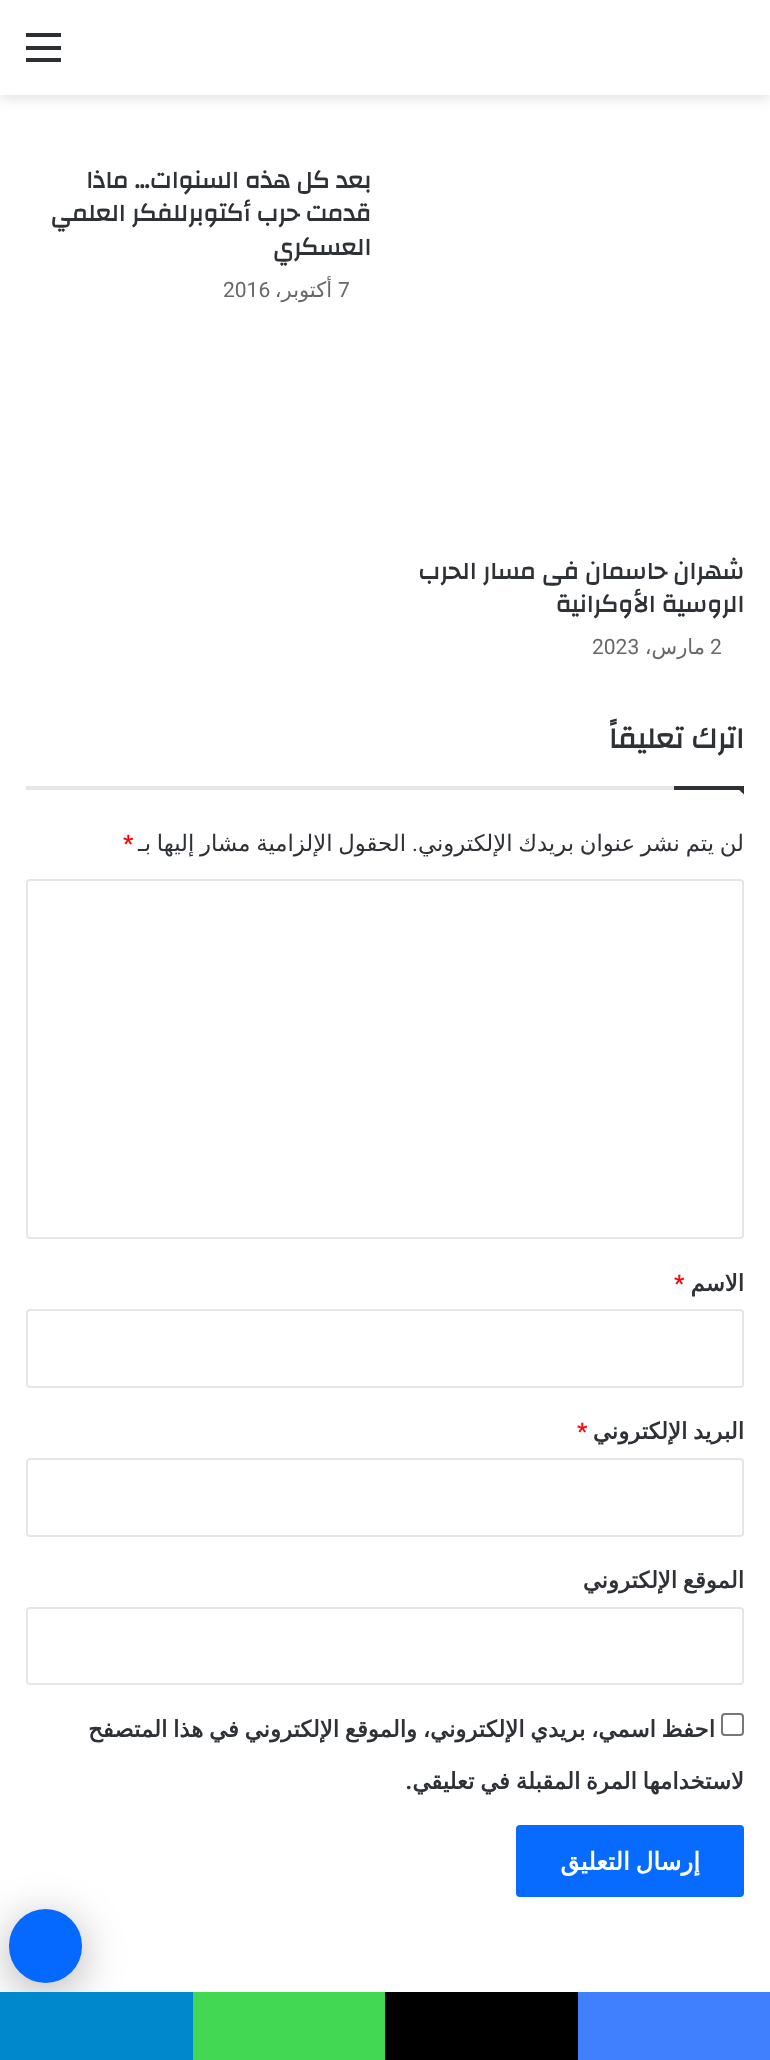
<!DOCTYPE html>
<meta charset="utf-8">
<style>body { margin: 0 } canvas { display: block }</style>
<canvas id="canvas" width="770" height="2060"></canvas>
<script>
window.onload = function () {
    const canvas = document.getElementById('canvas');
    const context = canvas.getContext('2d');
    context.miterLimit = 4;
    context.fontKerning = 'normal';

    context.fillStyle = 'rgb(255, 255, 255)';
    context.fillRect(0, 0, 770, 2060);
    context.save();
    context.beginPath();
    context.moveTo(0, 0);
    context.lineTo(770, 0);
    context.lineTo(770, 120);
    context.lineTo(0, 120);
    context.closePath();
    context.moveTo(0, 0);
    context.lineTo(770, 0);
    context.lineTo(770, 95);
    context.lineTo(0, 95);
    context.closePath();
    context.clip('evenodd');
    context.fillStyle = 'rgba(99, 99, 99, 0.2)';
    context.filter = 'blur(7px)';
    context.beginPath();
    context.rect(0, 4, 770, 94);
    context.fill();
    context.filter = 'none';
    context.restore();
    context.fillStyle = 'rgba(255, 255, 255, 0.95)';
    context.fillRect(0, 94, 770, 1);
    context.fillStyle = 'rgb(44, 47, 52)';
    context.fillRect(26, 46, 35, 4);
    context.fillRect(26, 33, 35, 4);
    context.fillRect(26, 58, 35, 4);
    context.fillStyle = 'rgb(230, 230, 230)';
    context.fillRect(26, 786, 648, 4);
    context.fillStyle = 'rgb(46, 49, 54)';
    context.beginPath();
    context.moveTo(735, 786);
    context.lineTo(744, 786);
    context.lineTo(744, 794.5);
    context.closePath();
    context.fill();
    context.fillRect(674, 786, 70, 4);
    context.beginPath();
    context.roundRect(27, 880, 716, 358, 3);
    context.strokeStyle = 'rgb(230, 230, 230)';
    context.lineWidth = 2;
    context.stroke();
    context.beginPath();
    context.roundRect(27, 1310, 716, 77, 3);
    context.stroke();
    context.beginPath();
    context.roundRect(27, 1459, 716, 77, 3);
    context.stroke();
    context.beginPath();
    context.roundRect(27, 1608, 716, 76, 3);
    context.stroke();
    context.beginPath();
    context.roundRect(722, 1714, 21, 21, 3);
    context.strokeStyle = 'rgb(119, 119, 119)';
    context.stroke();
    context.fillStyle = 'rgb(8, 107, 255)';
    context.beginPath();
    context.roundRect(516, 1825, 228, 72, 4);
    context.fill();
    context.fillStyle = 'rgba(0, 0, 0, 0.3)';
    context.filter = 'blur(22px)';
    context.beginPath();
    context.roundRect(9, 1918, 73, 74, 36.5);
    context.fill();
    context.filter = 'none';
    context.fillStyle = 'rgb(6, 105, 255)';
    context.beginPath();
    context.roundRect(9, 1909, 73, 74, 36.5);
    context.fill();
    context.fillStyle = 'rgb(64, 128, 255)';
    context.fillRect(578, 1992, 192, 68);
    context.fillStyle = 'rgb(0, 0, 0)';
    context.fillRect(385, 1992, 193, 68);
    context.fillStyle = 'rgb(67, 216, 84)';
    context.fillRect(193, 1992, 192, 68);
    context.fillStyle = 'rgb(0, 136, 204)';
    context.fillRect(0, 1992, 193, 68);
    context.direction = 'rtl';
    context.font = 'bold 24.5px Changa';
    context.fillStyle = 'rgb(46, 49, 54)';
    context.fillText('بعد كل هذه السنوات… ماذا', 371, 188);
    context.fillText('قدمت حرب أكتوبرللفكر العلمي', 371, 221);
    context.fillText('العسكري', 371, 255);
    context.direction = 'ltr';
    context.font = '21px Roboto';
    context.fillStyle = 'rgb(104, 104, 104)';
    context.fillText('7', 338, 297);
    context.direction = 'rtl';
    context.font = '21px DejaVu Sans';
    context.fillText('أكتوبر،', 332, 297);
    context.direction = 'ltr';
    context.font = '21px Roboto';
    context.fillText('2016', 223, 297);
    context.direction = 'rtl';
    context.font = 'bold 24.5px Changa';
    context.fillStyle = 'rgb(46, 49, 54)';
    context.fillText('شهران حاسمان فى مسار الحرب', 744, 579);
    context.fillText('الروسية الأوكرانية', 744, 612);
    context.direction = 'ltr';
    context.font = '21px Roboto';
    context.fillStyle = 'rgb(104, 104, 104)';
    context.fillText('2', 710, 654);
    context.direction = 'rtl';
    context.font = '21px DejaVu Sans';
    context.fillText('مارس،', 705, 654);
    context.direction = 'ltr';
    context.font = '21px Roboto';
    context.fillText('2023', 592, 654);
    context.direction = 'rtl';
    context.font = 'bold 29.75px Changa';
    context.fillStyle = 'rgb(46, 49, 54)';
    context.fillText('اترك تعليقاً', 744, 748);
    context.wordSpacing = '-1.5px';
    context.font = '22.75px DejaVu Sans';
    context.fillText('لن يتم نشر عنوان بريدك الإلكتروني', 744, 851);
    context.fillText('الحقول الإلزامية مشار إليها بـ', 406, 851);
    context.wordSpacing = '0px';
    context.direction = 'ltr';
    context.font = 'bold 22.75px Roboto';
    context.fillStyle = 'rgb(255, 3, 3)';
    context.fillText('*', 123, 851);
    context.direction = 'rtl';
    context.font = '22.75px Roboto';
    context.fillStyle = 'rgb(46, 49, 54)';
    context.fillText('.', 418, 851);
    context.font = 'bold 22.75px DejaVu Sans';
    context.fillText('الاسم', 744, 1291);
    context.direction = 'ltr';
    context.font = 'bold 22.75px Roboto';
    context.fillStyle = 'rgb(255, 3, 3)';
    context.fillText('*', 674, 1291);
    context.wordSpacing = '-1.5px';
    context.direction = 'rtl';
    context.font = 'bold 22.75px DejaVu Sans';
    context.fillStyle = 'rgb(46, 49, 54)';
    context.fillText('البريد الإلكتروني', 744, 1439);
    context.wordSpacing = '0px';
    context.direction = 'ltr';
    context.font = 'bold 22.75px Roboto';
    context.fillStyle = 'rgb(255, 3, 3)';
    context.fillText('*', 577, 1439);
    context.wordSpacing = '-1.5px';
    context.direction = 'rtl';
    context.font = 'bold 22.75px DejaVu Sans';
    context.fillStyle = 'rgb(46, 49, 54)';
    context.fillText('الموقع الإلكتروني', 744, 1588);
    context.fillText('احفظ اسمي، بريدي الإلكتروني، والموقع الإلكتروني في هذا المتصفح', 715, 1737);
    context.fillText('لاستخدامها المرة المقبلة في تعليقي', 744, 1789);
    context.wordSpacing = '0px';
    context.font = 'bold 22.75px Roboto';
    context.fillText('.', 412, 1789);
    context.wordSpacing = '-2px';
    context.font = 'bold 24.5px DejaVu Sans';
    context.fillStyle = 'rgb(255, 255, 255)';
    context.fillText('إرسال التعليق', 700, 1870);
};
</script>
